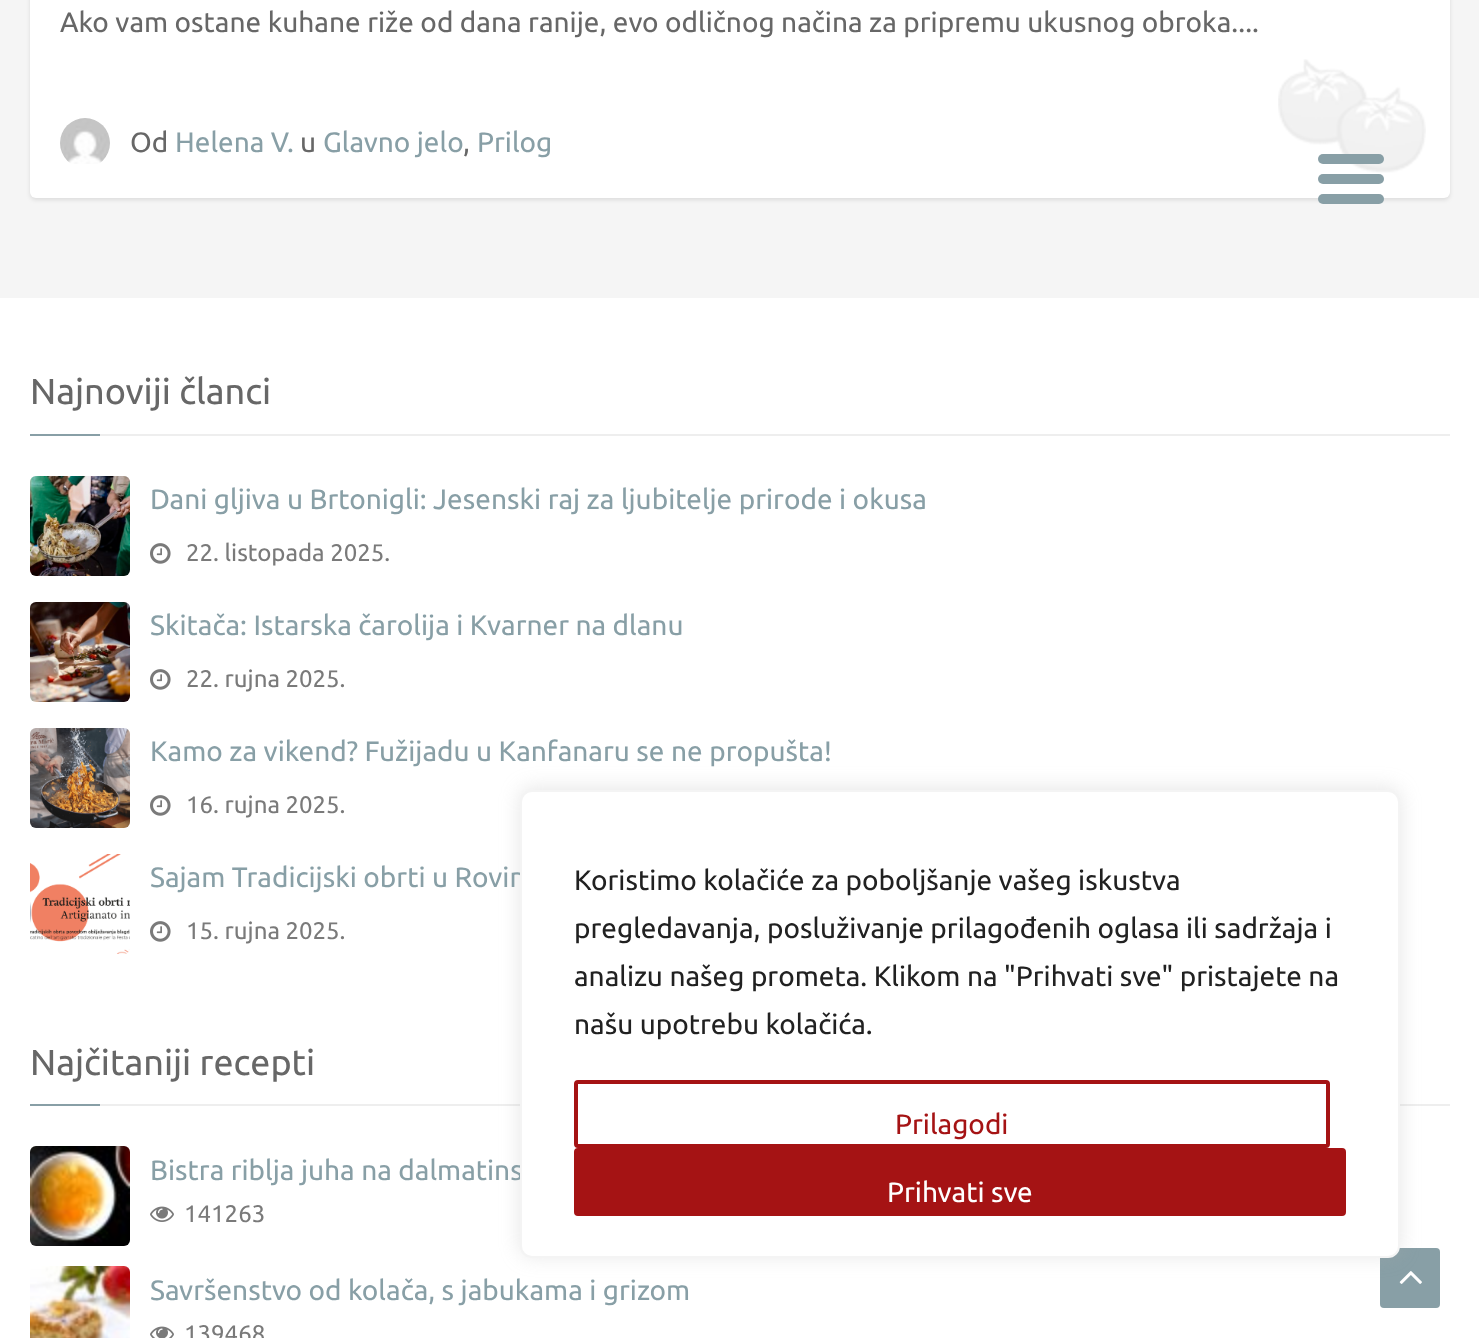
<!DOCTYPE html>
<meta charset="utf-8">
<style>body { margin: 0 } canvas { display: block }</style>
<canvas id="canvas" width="1479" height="1338"></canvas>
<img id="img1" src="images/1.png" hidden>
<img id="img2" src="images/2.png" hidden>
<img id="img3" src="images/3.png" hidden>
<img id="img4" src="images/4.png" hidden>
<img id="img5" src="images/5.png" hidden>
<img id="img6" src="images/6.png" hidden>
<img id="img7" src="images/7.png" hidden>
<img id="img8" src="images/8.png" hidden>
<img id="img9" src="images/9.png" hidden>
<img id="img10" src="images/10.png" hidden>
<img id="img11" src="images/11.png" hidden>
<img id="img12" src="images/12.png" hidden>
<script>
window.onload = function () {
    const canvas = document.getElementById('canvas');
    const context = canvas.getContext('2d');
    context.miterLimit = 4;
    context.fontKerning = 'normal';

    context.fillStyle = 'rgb(245, 245, 245)';
    context.fillRect(0, 0, 1479, 1338);
    context.fillStyle = 'rgba(0, 0, 0, 0.1)';
    context.filter = 'blur(2px)';
    context.beginPath();
    context.roundRect(30, -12, 1420, 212, 6);
    context.fill();
    context.filter = 'none';
    context.fillStyle = 'rgb(255, 255, 255)';
    context.beginPath();
    context.roundRect(30, -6, 1420, 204, 6);
    context.fill();
    context.drawImage(document.getElementById('img1'), 1278, 59, 148, 114);
    context.drawImage(document.getElementById('img2'), 60, 118, 50, 46);
    context.fillStyle = 'rgb(136, 159, 166)';
    context.beginPath();
    context.roundRect(1318, 174, 66, 10, 5);
    context.fill();
    context.beginPath();
    context.roundRect(1318, 154, 66, 10, 5);
    context.fill();
    context.beginPath();
    context.roundRect(1318, 194, 66, 10, 5);
    context.fill();
    context.fillStyle = 'rgb(255, 255, 255)';
    context.fillRect(0, 298, 1479, 1040);
    context.fillStyle = 'rgb(238, 238, 238)';
    context.fillRect(100, 434, 1350, 2);
    context.fillStyle = 'rgb(136, 159, 166)';
    context.fillRect(30, 434, 70, 2);
    context.drawImage(document.getElementById('img3'), 30, 476, 100, 100);
    context.drawImage(document.getElementById('img4'), 150, 543, 21, 21);
    context.drawImage(document.getElementById('img5'), 30, 602, 100, 100);
    context.drawImage(document.getElementById('img4'), 150, 669, 21, 21);
    context.drawImage(document.getElementById('img6'), 30, 728, 100, 100);
    context.drawImage(document.getElementById('img4'), 150, 795, 21, 21);
    context.drawImage(document.getElementById('img7'), 30, 854, 100, 100);
    context.drawImage(document.getElementById('img4'), 150, 921, 21, 21);
    context.fillStyle = 'rgb(238, 238, 238)';
    context.fillRect(100, 1104, 1350, 2);
    context.fillStyle = 'rgb(136, 159, 166)';
    context.fillRect(30, 1104, 70, 2);
    context.drawImage(document.getElementById('img8'), 30, 1146, 100, 100);
    context.drawImage(document.getElementById('img9'), 150, 1206, 24, 16);
    context.drawImage(document.getElementById('img10'), 30, 1266, 100, 72);
    context.drawImage(document.getElementById('img11'), 150, 1326, 24, 12);
    context.beginPath();
    context.roundRect(1380, 1248, 60, 60, 4);
    context.fill();
    context.drawImage(document.getElementById('img12'), 1399, 1271, 23, 13);
    context.fillStyle = 'rgba(172, 171, 171, 0.3)';
    context.filter = 'blur(10px)';
    context.beginPath();
    context.roundRect(520, 788, 880, 468, 12);
    context.fill();
    context.filter = 'none';
    context.font = '28px Ubuntu';
    context.fillStyle = 'rgb(103, 103, 103)';
    context.fillText('Ako vam ostane kuhane riže od dana ranije, evo odličnog načina za pripremu ukusnog obroka....', 60, 32);
    context.fillText('Od', 130, 152);
    context.fillStyle = 'rgb(136, 159, 166)';
    context.fillText('Helena V.', 175, 152);
    context.fillStyle = 'rgb(103, 103, 103)';
    context.fillText('u', 300, 152);
    context.fillStyle = 'rgb(136, 159, 166)';
    context.fillText('Glavno jelo', 323, 152);
    context.fillStyle = 'rgb(103, 103, 103)';
    context.fillText(',', 463, 152);
    context.fillStyle = 'rgb(136, 159, 166)';
    context.fillText('Prilog', 477, 152);
    context.font = '36px Ubuntu';
    context.fillStyle = 'rgb(103, 103, 103)';
    context.fillText('Najnoviji članci', 30, 404);
    context.font = '28px Ubuntu';
    context.fillStyle = 'rgb(136, 159, 166)';
    context.fillText('Dani gljiva u Brtonigli: Jesenski raj za ljubitelje prirode i okusa', 150, 509);
    context.font = '24px Ubuntu';
    context.fillStyle = 'rgb(122, 122, 122)';
    context.fillText('22. listopada 2025.', 186, 561);
    context.font = '28px Ubuntu';
    context.fillStyle = 'rgb(136, 159, 166)';
    context.fillText('Skitača: Istarska čarolija i Kvarner na dlanu', 150, 635);
    context.font = '24px Ubuntu';
    context.fillStyle = 'rgb(122, 122, 122)';
    context.fillText('22. rujna 2025.', 186, 687);
    context.font = '28px Ubuntu';
    context.fillStyle = 'rgb(136, 159, 166)';
    context.fillText('Kamo za vikend? Fužijadu u Kanfanaru se ne propušta!', 150, 761);
    context.font = '24px Ubuntu';
    context.fillStyle = 'rgb(122, 122, 122)';
    context.fillText('16. rujna 2025.', 186, 813);
    context.font = '28px Ubuntu';
    context.fillStyle = 'rgb(136, 159, 166)';
    context.fillText('Sajam Tradicijski obrti u Rovin', 150, 887);
    context.font = '24px Ubuntu';
    context.fillStyle = 'rgb(122, 122, 122)';
    context.fillText('15. rujna 2025.', 186, 939);
    context.font = '36px Ubuntu';
    context.fillStyle = 'rgb(103, 103, 103)';
    context.fillText('Najčitaniji recepti', 30, 1075);
    context.font = '28px Ubuntu';
    context.fillStyle = 'rgb(136, 159, 166)';
    context.fillText('Bistra riblja juha na dalmatins', 150, 1180);
    context.font = '24px Ubuntu';
    context.fillStyle = 'rgb(122, 122, 122)';
    context.fillText('141263', 184, 1222);
    context.font = '28px Ubuntu';
    context.fillStyle = 'rgb(136, 159, 166)';
    context.fillText('Savršenstvo od kolača, s jabukama i grizom', 150, 1300);
    context.font = '24px Ubuntu';
    context.fillStyle = 'rgb(122, 122, 122)';
    context.fillText('139468', 184, 1342);
    context.fillStyle = 'rgb(255, 255, 255)';
    context.beginPath();
    context.roundRect(521, 791, 878, 466, 11);
    context.fill();
    context.strokeStyle = 'rgb(244, 244, 244)';
    context.lineWidth = 2;
    context.stroke();
    context.font = '28px Ubuntu';
    context.fillStyle = 'rgb(33, 33, 33)';
    context.fillText('Koristimo kolačiće za poboljšanje vašeg iskustva', 574, 890);
    context.fillText('pregledavanja, posluživanje prilagođenih oglasa ili sadržaja i', 574, 938);
    context.fillText('analizu našeg prometa. Klikom na "Prihvati sve" pristajete na', 574, 986);
    context.fillText('našu upotrebu kolačića.', 574, 1034);
    context.beginPath();
    context.roundRect(576, 1082, 752, 64, 2);
    context.strokeStyle = 'rgb(165, 19, 20)';
    context.lineWidth = 4;
    context.stroke();
    context.fillStyle = 'rgb(165, 19, 20)';
    context.fillText('Prilagodi', 895, 1134);
    context.beginPath();
    context.roundRect(576, 1150, 768, 64, 2);
    context.fill();
    context.stroke();
    context.fillStyle = 'rgb(255, 255, 255)';
    context.fillText('Prihvati sve', 887, 1202);
};
</script>
